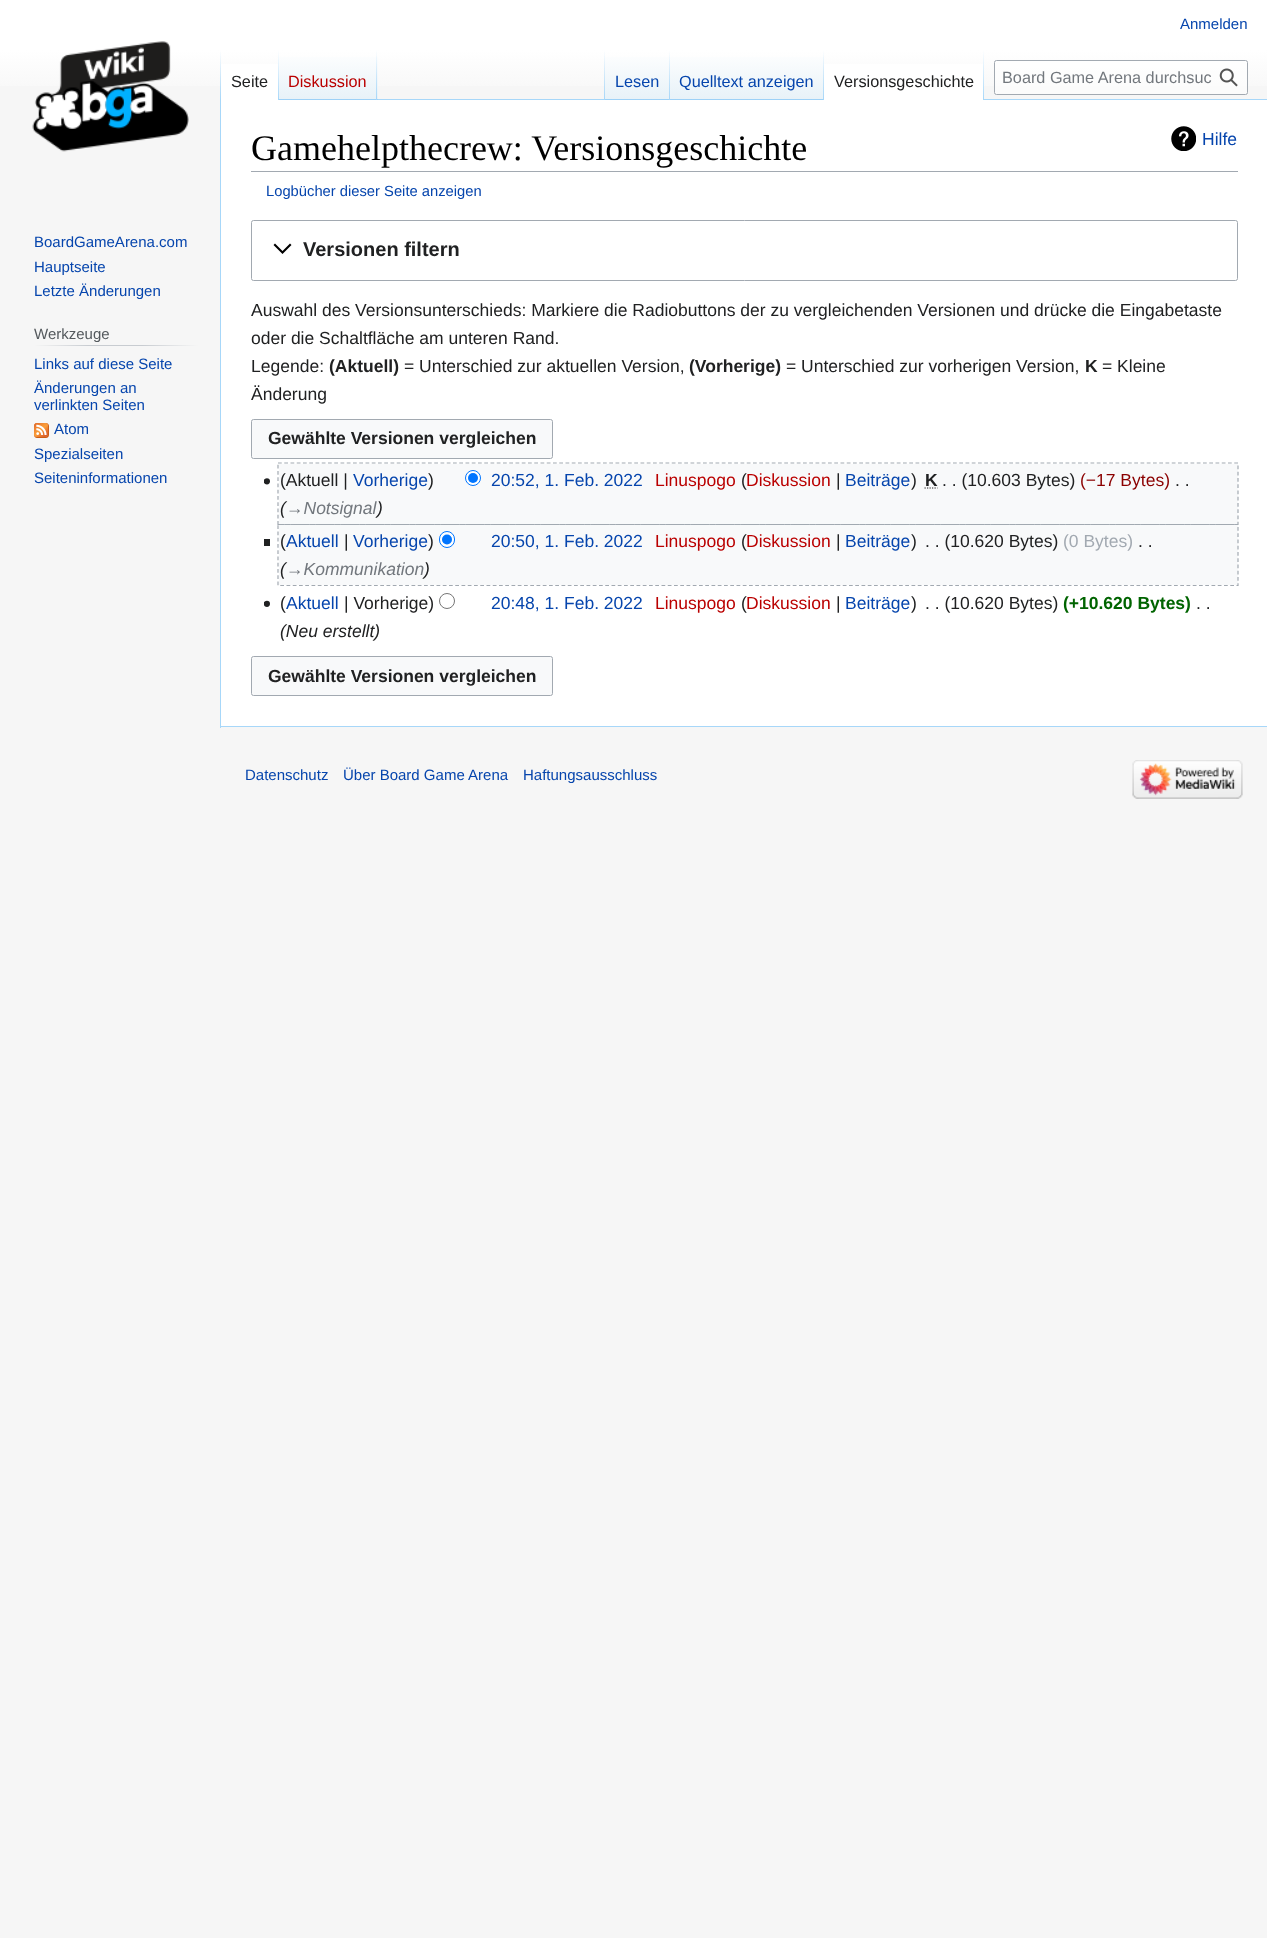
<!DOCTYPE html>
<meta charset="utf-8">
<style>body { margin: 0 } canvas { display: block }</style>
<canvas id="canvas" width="1267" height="1938"></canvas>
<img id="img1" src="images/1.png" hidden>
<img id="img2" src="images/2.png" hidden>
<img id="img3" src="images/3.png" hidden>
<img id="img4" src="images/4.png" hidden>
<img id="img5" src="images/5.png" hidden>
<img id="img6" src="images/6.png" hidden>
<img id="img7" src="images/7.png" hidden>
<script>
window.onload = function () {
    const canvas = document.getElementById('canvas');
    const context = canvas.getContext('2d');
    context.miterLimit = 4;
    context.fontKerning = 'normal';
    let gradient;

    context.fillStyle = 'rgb(246, 246, 246)';
    context.fillRect(0, 0, 1267, 1938);
    gradient = context.createLinearGradient(634, 0, 634, 100);
    gradient.addColorStop(0.5, 'rgb(255, 255, 255)');
    gradient.addColorStop(1, 'rgb(246, 246, 246)');
    context.fillStyle = gradient;
    context.fillRect(0, 0, 1267, 86);
    context.fillStyle = 'rgb(167, 215, 249)';
    context.fillRect(220, 726, 1047, 1);
    context.fillRect(220, 99, 1, 629);
    gradient = context.createLinearGradient(221, 50, 221, 100);
    gradient.addColorStop(0, 'rgba(167, 215, 249, 0)');
    gradient.addColorStop(1, 'rgb(167, 215, 249)');
    context.fillStyle = gradient;
    context.fillRect(220, 50, 1, 50);
    context.fillStyle = 'rgb(255, 255, 255)';
    context.fillRect(221, 64, 57, 36);
    gradient = context.createLinearGradient(278, 50, 278, 100);
    gradient.addColorStop(0, 'rgb(255, 255, 255)');
    gradient.addColorStop(1, 'rgb(167, 215, 249)');
    context.fillStyle = gradient;
    context.fillRect(278, 50, 1, 50);
    gradient = context.createLinearGradient(328, 100, 328, 50);
    gradient.addColorStop(0, 'rgb(119, 193, 246)');
    gradient.addColorStop(0.03, 'rgb(232, 242, 248)');
    gradient.addColorStop(1, 'rgb(255, 255, 255)');
    context.fillStyle = gradient;
    context.fillRect(279, 57, 99, 43);
    gradient = context.createLinearGradient(377, 50, 377, 100);
    gradient.addColorStop(0, 'rgba(167, 215, 249, 0)');
    gradient.addColorStop(1, 'rgb(167, 215, 249)');
    context.fillStyle = gradient;
    context.fillRect(376, 50, 1, 50);
    context.fillStyle = 'rgb(167, 215, 249)';
    context.fillRect(378, 99, 889, 1);
    gradient = context.createLinearGradient(604, 50, 604, 100);
    gradient.addColorStop(0, 'rgba(167, 215, 249, 0)');
    gradient.addColorStop(1, 'rgb(167, 215, 249)');
    context.fillStyle = gradient;
    context.fillRect(604, 50, 1, 50);
    gradient = context.createLinearGradient(638, 100, 638, 50);
    gradient.addColorStop(0, 'rgb(119, 193, 246)');
    gradient.addColorStop(0.03, 'rgb(232, 242, 248)');
    gradient.addColorStop(1, 'rgb(255, 255, 255)');
    context.fillStyle = gradient;
    context.fillRect(605, 57, 65, 43);
    gradient = context.createLinearGradient(669, 50, 669, 100);
    gradient.addColorStop(0, 'rgba(167, 215, 249, 0)');
    gradient.addColorStop(1, 'rgb(167, 215, 249)');
    context.fillStyle = gradient;
    context.fillRect(669, 50, 1, 50);
    gradient = context.createLinearGradient(747, 100, 747, 50);
    gradient.addColorStop(0, 'rgb(119, 193, 246)');
    gradient.addColorStop(0.03, 'rgb(232, 242, 248)');
    gradient.addColorStop(1, 'rgb(255, 255, 255)');
    context.fillStyle = gradient;
    context.fillRect(670, 57, 154, 43);
    gradient = context.createLinearGradient(823, 50, 823, 100);
    gradient.addColorStop(0, 'rgba(167, 215, 249, 0)');
    gradient.addColorStop(1, 'rgb(167, 215, 249)');
    context.fillStyle = gradient;
    context.fillRect(823, 50, 1, 50);
    context.fillStyle = 'rgb(255, 255, 255)';
    context.fillRect(824, 64, 159, 36);
    gradient = context.createLinearGradient(983, 50, 983, 100);
    gradient.addColorStop(0, 'rgb(255, 255, 255)');
    gradient.addColorStop(1, 'rgb(167, 215, 249)');
    context.fillStyle = gradient;
    context.fillRect(983, 50, 1, 50);
    context.fillStyle = 'rgba(255, 255, 255, 0.5)';
    context.beginPath();
    context.roundRect(994.5, 60.5, 253, 34, 2);
    context.fill();
    context.strokeStyle = 'rgb(162, 169, 177)';
    context.stroke();
    context.drawImage(document.getElementById('img1'), 1219, 68, 19, 19);
    context.drawImage(document.getElementById('img2'), 32, 41, 157, 111);
    gradient = context.createLinearGradient(34, 346, 198, 346);
    gradient.addColorStop(0, 'rgb(246, 246, 246)');
    gradient.addColorStop(0.33, 'rgb(200, 204, 209)');
    gradient.addColorStop(0.66, 'rgb(200, 204, 209)');
    gradient.addColorStop(1, 'rgb(246, 246, 246)');
    context.fillStyle = gradient;
    context.fillRect(34, 345, 164, 1);
    context.drawImage(document.getElementById('img3'), 34, 423, 15, 15);
    context.fillStyle = 'rgb(255, 255, 255)';
    context.fillRect(221, 100, 1046, 626);
    context.fillStyle = 'rgb(162, 169, 177)';
    context.fillRect(251, 171, 987, 1);
    context.drawImage(document.getElementById('img4'), 1171, 126, 25, 25);
    context.beginPath();
    context.roundRect(251.5, 220.5, 986, 60, 2);
    context.stroke();
    context.fillStyle = 'rgb(0, 0, 0)';
    context.beginPath();
    context.moveTo(290, 243.5);
    context.lineTo(282.5, 251);
    context.lineTo(275, 243.5);
    context.lineTo(273.5, 245);
    context.lineTo(282.5, 254);
    context.lineTo(291.5, 245);
    context.closePath();
    context.fill();
    context.fillStyle = 'rgb(248, 249, 250)';
    context.beginPath();
    context.roundRect(251.5, 419.5, 301, 39, 2);
    context.fill();
    context.stroke();
    context.fillRect(279, 464, 959, 60);
    context.drawImage(document.getElementById('img5'), 264, 478, 6, 7);
    context.fillStyle = 'rgb(255, 255, 255)';
    context.beginPath();
    context.arc(473, 478, 7.5, 0, 2 * Math.PI);
    context.fill();
    context.strokeStyle = 'rgb(0, 117, 255)';
    context.stroke();
    context.fillStyle = 'rgb(0, 117, 255)';
    context.beginPath();
    context.arc(473, 478, 5, 0, 2 * Math.PI);
    context.fill();
    context.beginPath();
    context.moveTo(924.5, 488);
    context.lineTo(937.5, 488);
    context.strokeStyle = 'rgb(32, 33, 34)';
    context.lineWidth = 1.2;
    context.setLineDash([1.25, 1.25]);
    context.stroke();
    context.fillStyle = 'rgb(248, 249, 250)';
    context.fillRect(279, 525, 959, 60);
    context.fillStyle = 'rgb(32, 33, 34)';
    context.fillRect(264, 539, 6, 7);
    context.fillStyle = 'rgb(255, 255, 255)';
    context.beginPath();
    context.roundRect(439.5, 531.5, 15, 16, 7.5);
    context.fill();
    context.strokeStyle = 'rgb(0, 117, 255)';
    context.lineWidth = 1;
    context.setLineDash([]);
    context.stroke();
    context.fillStyle = 'rgb(0, 117, 255)';
    context.beginPath();
    context.arc(447, 539.5, 5, 0, 2 * Math.PI);
    context.fill();
    context.drawImage(document.getElementById('img6'), 264, 600, 6, 7);
    context.beginPath();
    context.arc(447, 601, 7.5, 0, 2 * Math.PI);
    context.strokeStyle = 'rgb(118, 118, 118)';
    context.stroke();
    context.fillStyle = 'rgb(248, 249, 250)';
    context.beginPath();
    context.roundRect(251.5, 656.5, 301, 39, 2);
    context.fill();
    context.strokeStyle = 'rgb(162, 169, 177)';
    context.stroke();
    context.drawImage(document.getElementById('img7'), 1132, 760, 111, 39);
    context.font = '15px Liberation Sans';
    context.fillStyle = 'rgb(6, 69, 173)';
    context.fillText('Anmelden', 1180, 29);
    context.font = '16.25px Liberation Sans';
    context.fillStyle = 'rgb(32, 33, 34)';
    context.fillText('Seite', 231, 87);
    context.fillStyle = 'rgb(186, 0, 0)';
    context.fillText('Diskussion', 288, 87);
    context.fillStyle = 'rgb(6, 69, 173)';
    context.fillText('Lesen', 615, 87);
    context.fillText('Quelltext anzeigen', 679, 87);
    context.fillStyle = 'rgb(32, 33, 34)';
    context.fillText('Versionsgeschichte', 834, 87);
    context.fillStyle = 'rgb(114, 119, 125)';
    context.fillText('Board Game Arena durchsuc', 1002, 83);
    context.font = '15px Liberation Sans';
    context.fillStyle = 'rgb(6, 69, 173)';
    context.fillText('BoardGameArena.com', 34, 247);
    context.fillText('Hauptseite', 34, 272);
    context.fillText('Letzte Änderungen', 34, 296);
    context.fillStyle = 'rgb(84, 89, 93)';
    context.fillText('Werkzeuge', 34, 339);
    context.fillStyle = 'rgb(6, 69, 173)';
    context.fillText('Links auf diese Seite', 34, 369);
    context.fillText('Änderungen an', 34, 393);
    context.fillText('verlinkten Seiten', 34, 410);
    context.fillText('Atom', 54, 434);
    context.fillText('Spezialseiten', 34, 459);
    context.fillText('Seiteninformationen', 34, 483);
    context.font = '36px Liberation Serif';
    context.fillStyle = 'rgb(0, 0, 0)';
    context.fillText('Gamehelpthecrew: Versionsgeschichte', 251, 160);
    context.font = '17.5px Liberation Sans';
    context.fillStyle = 'rgb(6, 69, 173)';
    context.fillText('Hilfe', 1202, 145);
    context.font = '14.75px Liberation Sans';
    context.fillText('Logbücher dieser Seite anzeigen', 266, 196);
    context.font = 'bold 20px Liberation Sans';
    context.fillStyle = 'rgb(32, 33, 34)';
    context.fillText('Versionen filtern', 303, 256);
    context.font = '17.5px Liberation Sans';
    context.fillText('Auswahl des Versionsunterschieds: Markiere die Radiobuttons der zu vergleichenden Versionen und drücke die Eingabetaste', 251, 316);
    context.fillText('oder die Schaltfläche am unteren Rand.', 251, 344);
    context.fillText('Legende:', 251, 372);
    context.font = 'bold 17.5px Liberation Sans';
    context.fillText('(Aktuell)', 329, 372);
    context.font = '17.5px Liberation Sans';
    context.fillText('= Unterschied zur aktuellen Version,', 404, 372);
    context.font = 'bold 17.5px Liberation Sans';
    context.fillText('(Vorherige)', 689, 372);
    context.font = '17.5px Liberation Sans';
    context.fillText('= Unterschied zur vorherigen Version,', 786, 372);
    context.font = 'bold 17.5px Liberation Sans';
    context.fillText('K', 1085, 372);
    context.font = '17.5px Liberation Sans';
    context.fillText('= Kleine', 1102, 372);
    context.fillText('Änderung', 251, 400);
    context.font = 'bold 17.5px Liberation Sans';
    context.fillText('Gewählte Versionen vergleichen', 268, 444);
    context.font = '17.5px Liberation Sans';
    context.fillText('(Aktuell |', 280, 486);
    context.fillStyle = 'rgb(6, 69, 173)';
    context.fillText('Vorherige', 353, 486);
    context.fillStyle = 'rgb(32, 33, 34)';
    context.fillText(')', 428, 486);
    context.fillStyle = 'rgb(6, 69, 173)';
    context.fillText('20:52, 1. Feb. 2022', 491, 486);
    context.fillStyle = 'rgb(186, 0, 0)';
    context.fillText('Linuspogo', 655, 486);
    context.fillStyle = 'rgb(32, 33, 34)';
    context.fillText('(', 741, 486);
    context.fillStyle = 'rgb(186, 0, 0)';
    context.fillText('Diskussion', 746, 486);
    context.fillStyle = 'rgb(32, 33, 34)';
    context.fillText('|', 836, 486);
    context.fillStyle = 'rgb(6, 69, 173)';
    context.fillText('Beiträge', 845, 486);
    context.fillStyle = 'rgb(32, 33, 34)';
    context.fillText(')', 911, 486);
    context.font = 'bold 17.5px Liberation Sans';
    context.fillText('K', 925, 486);
    context.font = '17.5px Liberation Sans';
    context.fillText('. . (10.603 Bytes)', 942, 486);
    context.fillStyle = 'rgb(139, 0, 0)';
    context.fillText('(−17 Bytes)', 1080, 486);
    context.fillStyle = 'rgb(32, 33, 34)';
    context.fillText('. .', 1175, 486);
    context.font = 'italic 17.5px Liberation Sans';
    context.fillText('(', 280, 514);
    context.fillStyle = 'rgb(114, 119, 125)';
    context.fillText('→Notsignal', 286, 514);
    context.fillStyle = 'rgb(32, 33, 34)';
    context.fillText(')', 377, 514);
    context.beginPath();
    context.moveTo(278, 463);
    context.lineTo(1238, 463);
    context.lineTo(1238, 524.5);
    context.lineTo(278, 524.5);
    context.closePath();
    context.lineWidth = 1.2;
    context.setLineDash([3.75, 2.5]);
    context.stroke();
    context.font = '17.5px Liberation Sans';
    context.fillText('(', 280, 547);
    context.fillStyle = 'rgb(6, 69, 173)';
    context.fillText('Aktuell', 286, 547);
    context.fillStyle = 'rgb(32, 33, 34)';
    context.fillText('|', 344, 547);
    context.fillStyle = 'rgb(6, 69, 173)';
    context.fillText('Vorherige', 353, 547);
    context.fillStyle = 'rgb(32, 33, 34)';
    context.fillText(')', 428, 547);
    context.fillStyle = 'rgb(6, 69, 173)';
    context.fillText('20:50, 1. Feb. 2022', 491, 547);
    context.fillStyle = 'rgb(186, 0, 0)';
    context.fillText('Linuspogo', 655, 547);
    context.fillStyle = 'rgb(32, 33, 34)';
    context.fillText('(', 741, 547);
    context.fillStyle = 'rgb(186, 0, 0)';
    context.fillText('Diskussion', 746, 547);
    context.fillStyle = 'rgb(32, 33, 34)';
    context.fillText('|', 836, 547);
    context.fillStyle = 'rgb(6, 69, 173)';
    context.fillText('Beiträge', 845, 547);
    context.fillStyle = 'rgb(32, 33, 34)';
    context.fillText(')', 911, 547);
    context.fillText('. . (10.620 Bytes)', 925, 547);
    context.fillStyle = 'rgb(162, 169, 177)';
    context.fillText('(0 Bytes)', 1063, 547);
    context.fillStyle = 'rgb(32, 33, 34)';
    context.fillText('. .', 1138, 547);
    context.font = 'italic 17.5px Liberation Sans';
    context.fillText('(', 280, 575);
    context.fillStyle = 'rgb(114, 119, 125)';
    context.fillText('→Kommunikation', 286, 575);
    context.fillStyle = 'rgb(32, 33, 34)';
    context.fillText(')', 424, 575);
    context.beginPath();
    context.moveTo(278, 524.5);
    context.lineTo(1238, 524.5);
    context.lineTo(1238, 585.5);
    context.lineTo(278, 585.5);
    context.closePath();
    context.stroke();
    context.font = '17.5px Liberation Sans';
    context.fillText('(', 280, 609);
    context.fillStyle = 'rgb(6, 69, 173)';
    context.fillText('Aktuell', 286, 609);
    context.fillStyle = 'rgb(32, 33, 34)';
    context.fillText('| Vorherige)', 344, 609);
    context.fillStyle = 'rgb(6, 69, 173)';
    context.fillText('20:48, 1. Feb. 2022', 491, 609);
    context.fillStyle = 'rgb(186, 0, 0)';
    context.fillText('Linuspogo', 655, 609);
    context.fillStyle = 'rgb(32, 33, 34)';
    context.fillText('(', 741, 609);
    context.fillStyle = 'rgb(186, 0, 0)';
    context.fillText('Diskussion', 746, 609);
    context.fillStyle = 'rgb(32, 33, 34)';
    context.fillText('|', 836, 609);
    context.fillStyle = 'rgb(6, 69, 173)';
    context.fillText('Beiträge', 845, 609);
    context.fillStyle = 'rgb(32, 33, 34)';
    context.fillText(')', 911, 609);
    context.fillText('. . (10.620 Bytes)', 925, 609);
    context.font = 'bold 17.5px Liberation Sans';
    context.fillStyle = 'rgb(0, 100, 0)';
    context.fillText('(+10.620 Bytes)', 1063, 609);
    context.font = '17.5px Liberation Sans';
    context.fillStyle = 'rgb(32, 33, 34)';
    context.fillText('. .', 1196, 609);
    context.font = 'italic 17.5px Liberation Sans';
    context.fillText('(Neu erstellt)', 280, 637);
    context.font = 'bold 17.5px Liberation Sans';
    context.fillText('Gewählte Versionen vergleichen', 268, 682);
    context.font = '15px Liberation Sans';
    context.fillStyle = 'rgb(6, 69, 173)';
    context.fillText('Datenschutz', 245, 780);
    context.fillText('Über Board Game Arena', 343, 780);
    context.fillText('Haftungsausschluss', 523, 780);
};
</script>
